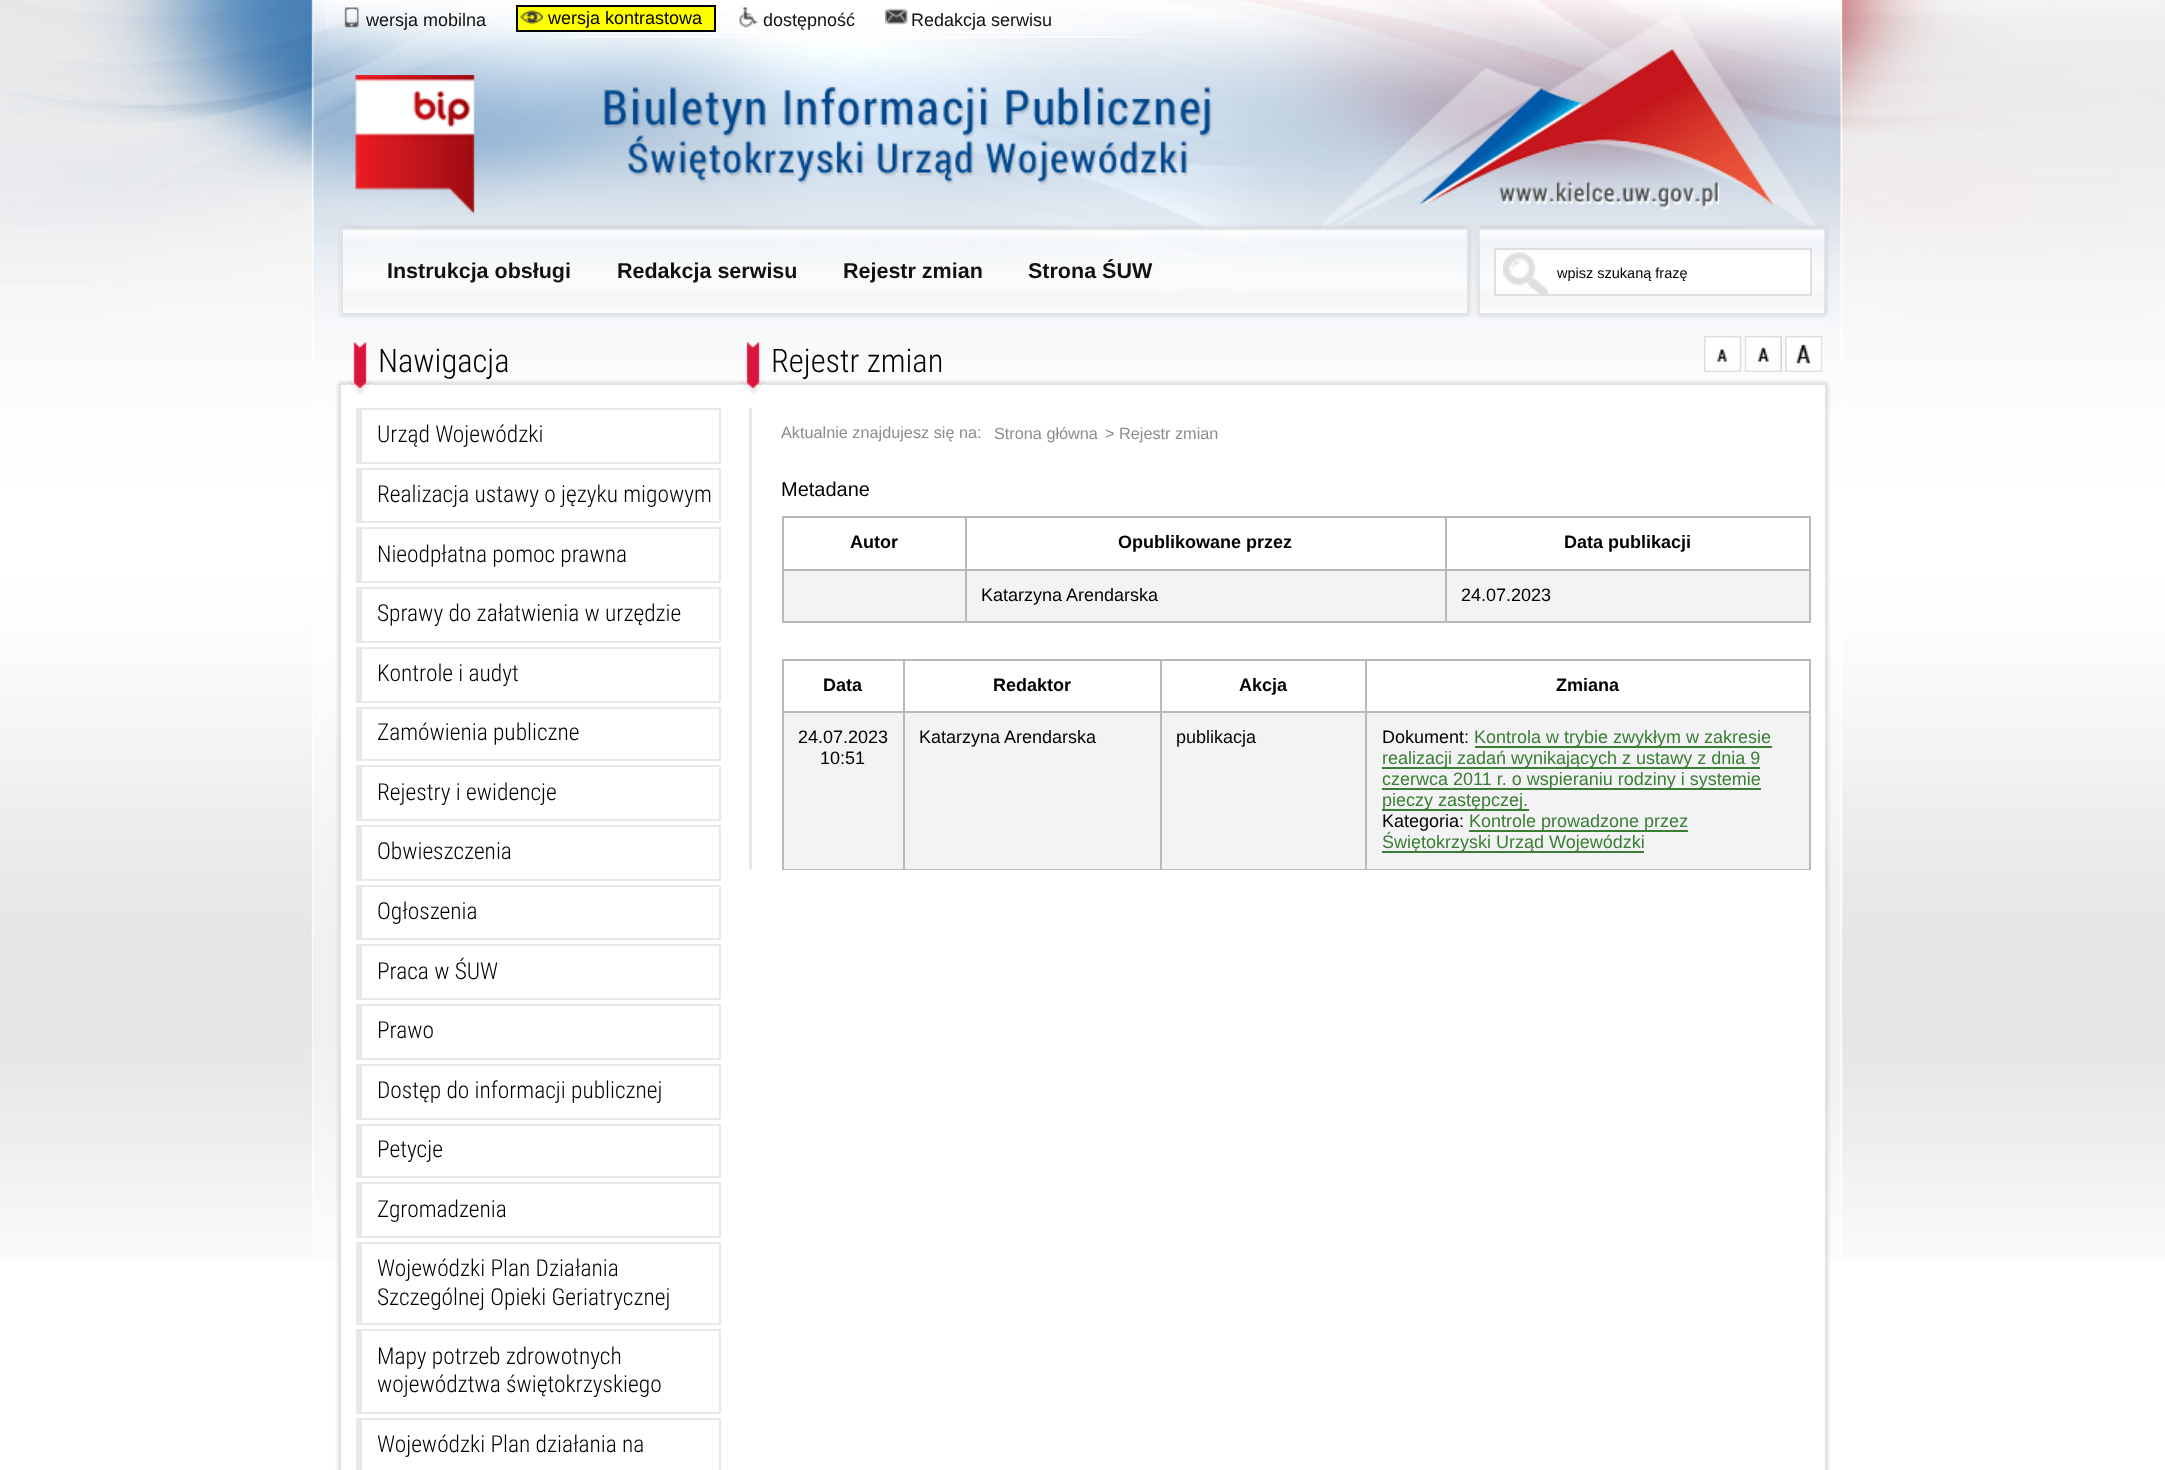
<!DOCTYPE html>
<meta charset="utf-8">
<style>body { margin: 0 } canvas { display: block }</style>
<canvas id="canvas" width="2165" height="1470"></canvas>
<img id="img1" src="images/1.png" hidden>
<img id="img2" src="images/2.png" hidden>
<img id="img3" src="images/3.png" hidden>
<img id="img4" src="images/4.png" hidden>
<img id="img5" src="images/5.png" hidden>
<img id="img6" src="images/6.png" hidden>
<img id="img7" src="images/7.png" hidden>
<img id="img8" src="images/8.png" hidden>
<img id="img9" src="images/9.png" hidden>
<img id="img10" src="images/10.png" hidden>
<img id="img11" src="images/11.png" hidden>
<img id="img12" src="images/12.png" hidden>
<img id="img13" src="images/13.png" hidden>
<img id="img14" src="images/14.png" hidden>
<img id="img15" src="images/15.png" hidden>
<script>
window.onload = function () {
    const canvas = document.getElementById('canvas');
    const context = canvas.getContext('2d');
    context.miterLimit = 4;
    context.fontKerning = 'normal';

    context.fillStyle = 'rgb(255, 255, 255)';
    context.fillRect(0, 0, 2165, 1470);
    context.drawImage(document.getElementById('img1'), 0, 0, 2165, 1260);
    context.drawImage(document.getElementById('img2'), 546, 18, 608, 20);
    context.drawImage(document.getElementById('img3'), 344, 7, 15, 21);
    context.fillStyle = 'rgb(255, 255, 0)';
    context.beginPath();
    context.rect(517, 6, 198, 25);
    context.fill();
    context.strokeStyle = 'rgb(0, 0, 0)';
    context.lineWidth = 2;
    context.stroke();
    context.drawImage(document.getElementById('img4'), 520, 10, 23, 15);
    context.drawImage(document.getElementById('img5'), 739, 7, 19, 21);
    context.drawImage(document.getElementById('img6'), 885, 8, 23, 17);
    context.drawImage(document.getElementById('img7'), 1323, 15, 499, 221);
    context.drawImage(document.getElementById('img8'), 355, 75, 857, 138);
    context.save();
    context.beginPath();
    context.moveTo(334, 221);
    context.lineTo(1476, 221);
    context.lineTo(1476, 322);
    context.lineTo(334, 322);
    context.closePath();
    context.moveTo(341, 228);
    context.lineTo(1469, 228);
    context.lineTo(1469, 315);
    context.lineTo(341, 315);
    context.closePath();
    context.clip('evenodd');
    context.fillStyle = 'rgb(199, 199, 199)';
    context.filter = 'blur(2px)';
    context.beginPath();
    context.rect(341, 228, 1128, 87);
    context.fill();
    context.filter = 'none';
    context.restore();
    context.drawImage(document.getElementById('img9'), 340, 229, 1127, 85);
    context.strokeStyle = 'rgb(223, 228, 233)';
    context.strokeRect(342, 229, 1126, 85);
    context.save();
    context.beginPath();
    context.moveTo(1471, 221);
    context.lineTo(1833, 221);
    context.lineTo(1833, 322);
    context.lineTo(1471, 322);
    context.closePath();
    context.moveTo(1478, 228);
    context.lineTo(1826, 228);
    context.lineTo(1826, 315);
    context.lineTo(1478, 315);
    context.closePath();
    context.clip('evenodd');
    context.fillStyle = 'rgb(199, 199, 199)';
    context.filter = 'blur(2px)';
    context.beginPath();
    context.rect(1478, 228, 348, 87);
    context.fill();
    context.filter = 'none';
    context.restore();
    context.drawImage(document.getElementById('img10'), 1477, 228, 347, 87);
    context.strokeRect(1479, 229, 346, 85);
    context.fillStyle = 'rgb(255, 255, 255)';
    context.beginPath();
    context.rect(1495, 249, 316, 46);
    context.fill();
    context.strokeStyle = 'rgb(223, 223, 223)';
    context.stroke();
    context.drawImage(document.getElementById('img11'), 1503, 252, 45, 42);
    context.fillStyle = 'rgb(199, 199, 199)';
    context.filter = 'blur(2px)';
    context.beginPath();
    context.rect(339, 383, 1488, 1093);
    context.fill();
    context.filter = 'none';
    context.fillStyle = 'rgb(255, 255, 255)';
    context.beginPath();
    context.rect(340, 384, 1486, 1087);
    context.fill();
    context.strokeStyle = 'rgb(226, 226, 226)';
    context.stroke();
    context.drawImage(document.getElementById('img12'), 348, 342, 24, 52);
    context.fillStyle = 'rgb(232, 232, 232)';
    context.fillRect(356, 408, 364, 2);
    context.fillRect(719, 408, 2, 56);
    context.fillRect(356, 462, 364, 2);
    context.fillRect(356, 408, 6, 56);
    context.fillRect(356, 468, 364, 2);
    context.fillRect(719, 468, 2, 54);
    context.fillRect(356, 521, 364, 2);
    context.fillRect(356, 468, 6, 54);
    context.fillRect(356, 527, 364, 2);
    context.fillRect(719, 527, 2, 55);
    context.fillRect(356, 581, 364, 2);
    context.fillRect(356, 527, 6, 55);
    context.fillRect(356, 587, 364, 2);
    context.fillRect(719, 587, 2, 55);
    context.fillRect(356, 641, 364, 2);
    context.fillRect(356, 587, 6, 55);
    context.fillRect(356, 647, 364, 2);
    context.fillRect(719, 647, 2, 55);
    context.fillRect(356, 701, 364, 2);
    context.fillRect(356, 647, 6, 55);
    context.fillRect(356, 707, 364, 2);
    context.fillRect(719, 707, 2, 54);
    context.fillRect(356, 759, 364, 2);
    context.fillRect(356, 707, 6, 54);
    context.fillRect(356, 765, 364, 2);
    context.fillRect(719, 765, 2, 56);
    context.fillRect(356, 819, 364, 2);
    context.fillRect(356, 765, 6, 56);
    context.fillRect(356, 825, 364, 2);
    context.fillRect(719, 825, 2, 56);
    context.fillRect(356, 879, 364, 2);
    context.fillRect(356, 825, 6, 56);
    context.fillRect(356, 885, 364, 2);
    context.fillRect(719, 885, 2, 54);
    context.fillRect(356, 938, 364, 2);
    context.fillRect(356, 885, 6, 54);
    context.fillRect(356, 944, 364, 2);
    context.fillRect(719, 944, 2, 55);
    context.fillRect(356, 998, 364, 2);
    context.fillRect(356, 944, 6, 55);
    context.fillRect(356, 1004, 364, 2);
    context.fillRect(719, 1004, 2, 55);
    context.fillRect(356, 1058, 364, 2);
    context.fillRect(356, 1004, 6, 55);
    context.fillRect(356, 1064, 364, 2);
    context.fillRect(719, 1064, 2, 55);
    context.fillRect(356, 1118, 364, 2);
    context.fillRect(356, 1064, 6, 55);
    context.fillRect(356, 1124, 364, 2);
    context.fillRect(719, 1124, 2, 54);
    context.fillRect(356, 1176, 364, 2);
    context.fillRect(356, 1124, 6, 54);
    context.fillRect(356, 1182, 364, 2);
    context.fillRect(719, 1182, 2, 56);
    context.fillRect(356, 1236, 364, 2);
    context.fillRect(356, 1182, 6, 56);
    context.fillRect(356, 1242, 364, 2);
    context.fillRect(719, 1242, 2, 83);
    context.fillRect(356, 1323, 364, 2);
    context.fillRect(356, 1242, 6, 83);
    context.fillRect(356, 1329, 364, 2);
    context.fillRect(719, 1329, 2, 84);
    context.fillRect(356, 1412, 364, 2);
    context.fillRect(356, 1329, 6, 84);
    context.fillRect(356, 1418, 364, 2);
    context.fillRect(719, 1418, 2, 52);
    context.fillRect(356, 1418, 6, 52);
    context.drawImage(document.getElementById('img12'), 741, 342, 24, 52);
    context.drawImage(document.getElementById('img13'), 1704, 336, 38, 36);
    context.drawImage(document.getElementById('img14'), 1744, 336, 38, 36);
    context.drawImage(document.getElementById('img15'), 1785, 336, 38, 36);
    context.fillRect(749, 408, 3, 462);
    context.fillStyle = 'rgb(185, 185, 185)';
    context.fillRect(1445, 516, 366, 2);
    context.fillRect(1445, 569, 366, 2);
    context.fillStyle = 'rgb(243, 243, 245)';
    context.fillRect(784, 571, 1025, 50);
    context.fillStyle = 'rgb(185, 185, 185)';
    context.fillRect(1809, 569, 2, 54);
    context.fillRect(1445, 621, 366, 2);
    context.fillRect(1445, 569, 2, 54);
    context.fillRect(965, 569, 481, 2);
    context.fillRect(1445, 516, 2, 54);
    context.fillRect(965, 516, 481, 2);
    context.fillRect(965, 621, 481, 2);
    context.fillRect(965, 569, 2, 54);
    context.fillRect(782, 569, 184, 2);
    context.fillRect(965, 516, 2, 54);
    context.fillRect(782, 516, 184, 2);
    context.fillRect(782, 621, 184, 2);
    context.fillRect(782, 569, 2, 54);
    context.fillRect(782, 516, 2, 54);
    context.fillRect(1809, 516, 2, 54);
    context.fillRect(1365, 659, 446, 2);
    context.fillRect(1365, 711, 446, 2);
    context.fillStyle = 'rgb(243, 243, 245)';
    context.fillRect(784, 713, 1025, 156);
    context.fillStyle = 'rgb(185, 185, 185)';
    context.fillRect(1809, 711, 2, 159);
    context.fillRect(1365, 869, 446, 1);
    context.fillRect(1365, 711, 2, 159);
    context.fillRect(1160, 711, 207, 2);
    context.fillRect(1365, 659, 2, 54);
    context.fillRect(1160, 659, 207, 2);
    context.fillRect(1160, 869, 207, 1);
    context.fillRect(1160, 711, 2, 159);
    context.fillRect(903, 711, 258, 2);
    context.fillRect(1160, 659, 2, 54);
    context.fillRect(903, 659, 258, 2);
    context.fillRect(903, 869, 258, 1);
    context.fillRect(903, 711, 2, 159);
    context.fillRect(782, 711, 123, 2);
    context.fillRect(903, 659, 2, 54);
    context.fillRect(782, 659, 123, 2);
    context.fillRect(782, 869, 123, 1);
    context.fillRect(782, 711, 2, 159);
    context.fillRect(782, 659, 2, 54);
    context.fillRect(1809, 659, 2, 54);
    context.fillStyle = 'rgb(57, 126, 50)';
    context.fillRect(1475, 746, 297, 2);
    context.fillRect(1382, 767, 378, 2);
    context.fillRect(1382, 788, 379, 2);
    context.fillRect(1382, 809, 147, 2);
    context.fillRect(1469, 830, 219, 2);
    context.fillRect(1382, 851, 262, 2);
    context.font = '18px Liberation Sans';
    context.fillStyle = 'rgb(17, 17, 17)';
    context.fillText('wersja mobilna', 366, 26);
    context.fillStyle = 'rgb(0, 0, 0)';
    context.fillText('wersja kontrastowa', 548, 24);
    context.fillStyle = 'rgb(17, 17, 17)';
    context.fillText('dostępność', 763, 26);
    context.fillText('Redakcja serwisu', 911, 26);
    context.font = 'bold 21.5px Liberation Sans';
    context.fillText('Instrukcja obsługi', 387, 278);
    context.fillText('Redakcja serwisu', 617, 278);
    context.fillText('Rejestr zmian', 843, 278);
    context.fillText('Strona ŚUW', 1028, 278);
    context.font = '14.5px Liberation Sans';
    context.fillStyle = 'rgb(0, 0, 0)';
    context.fillText('wpisz szukaną frazę', 1557, 278);
    context.font = '300 32.5px Roboto Condensed';
    context.fillText('Nawigacja', 378, 372);
    context.font = '300 23.4px Roboto Condensed';
    context.fillText('Urząd Wojewódzki', 377, 442);
    context.fillText('Realizacja ustawy o języku migowym', 377, 502);
    context.fillText('Nieodpłatna pomoc prawna', 377, 562);
    context.fillText('Sprawy do załatwienia w urzędzie', 377, 621);
    context.fillText('Kontrole i audyt', 377, 681);
    context.fillText('Zamówienia publiczne', 377, 740);
    context.fillText('Rejestry i ewidencje', 377, 800);
    context.fillText('Obwieszczenia', 377, 859);
    context.fillText('Ogłoszenia', 377, 919);
    context.fillText('Praca w ŚUW', 377, 979);
    context.fillText('Prawo', 377, 1038);
    context.fillText('Dostęp do informacji publicznej', 377, 1098);
    context.fillText('Petycje', 377, 1157);
    context.fillText('Zgromadzenia', 377, 1217);
    context.fillText('Wojewódzki Plan Działania', 377, 1276);
    context.fillText('Szczególnej Opieki Geriatrycznej', 377, 1305);
    context.fillText('Mapy potrzeb zdrowotnych', 377, 1364);
    context.fillText('województwa świętokrzyskiego', 377, 1392);
    context.fillText('Wojewódzki Plan działania na', 377, 1452);
    context.font = '300 32.5px Roboto Condensed';
    context.fillText('Rejestr zmian', 771, 372);
    context.font = '16.25px Liberation Sans';
    context.fillStyle = 'rgb(140, 140, 140)';
    context.fillText('Aktualnie znajdujesz się na:', 781, 438);
    context.fillText('Strona główna', 994, 439);
    context.fillText('> Rejestr zmian', 1105, 439);
    context.font = '20px Liberation Sans';
    context.fillStyle = 'rgb(0, 0, 0)';
    context.fillText('Metadane', 781, 496);
    context.font = 'bold 18px Liberation Sans';
    context.fillText('Autor', 850, 548);
    context.fillText('Opublikowane przez', 1118, 548);
    context.fillText('Data publikacji', 1564, 548);
    context.font = '18px Liberation Sans';
    context.fillText('Katarzyna Arendarska', 981, 601);
    context.fillText('24.07.2023', 1461, 601);
    context.font = 'bold 18px Liberation Sans';
    context.fillText('Data', 823, 691);
    context.fillText('Redaktor', 993, 691);
    context.fillText('Akcja', 1239, 691);
    context.fillText('Zmiana', 1556, 691);
    context.font = '18px Liberation Sans';
    context.fillText('24.07.2023', 798, 743);
    context.fillText('10:51', 820, 764);
    context.fillText('Katarzyna Arendarska', 919, 743);
    context.fillText('publikacja', 1176, 743);
    context.fillText('Dokument:', 1382, 743);
    context.fillStyle = 'rgb(57, 126, 50)';
    context.fillText('Kontrola w trybie zwykłym w zakresie', 1474, 743);
    context.fillText('realizacji zadań wynikających z ustawy z dnia 9', 1382, 764);
    context.fillText('czerwca 2011 r. o wspieraniu rodziny i systemie', 1382, 785);
    context.fillText('pieczy zastępczej.', 1382, 806);
    context.fillStyle = 'rgb(0, 0, 0)';
    context.fillText('Kategoria:', 1382, 827);
    context.fillStyle = 'rgb(57, 126, 50)';
    context.fillText('Kontrole prowadzone przez', 1469, 827);
    context.fillText('Świętokrzyski Urząd Wojewódzki', 1382, 848);
};
</script>
